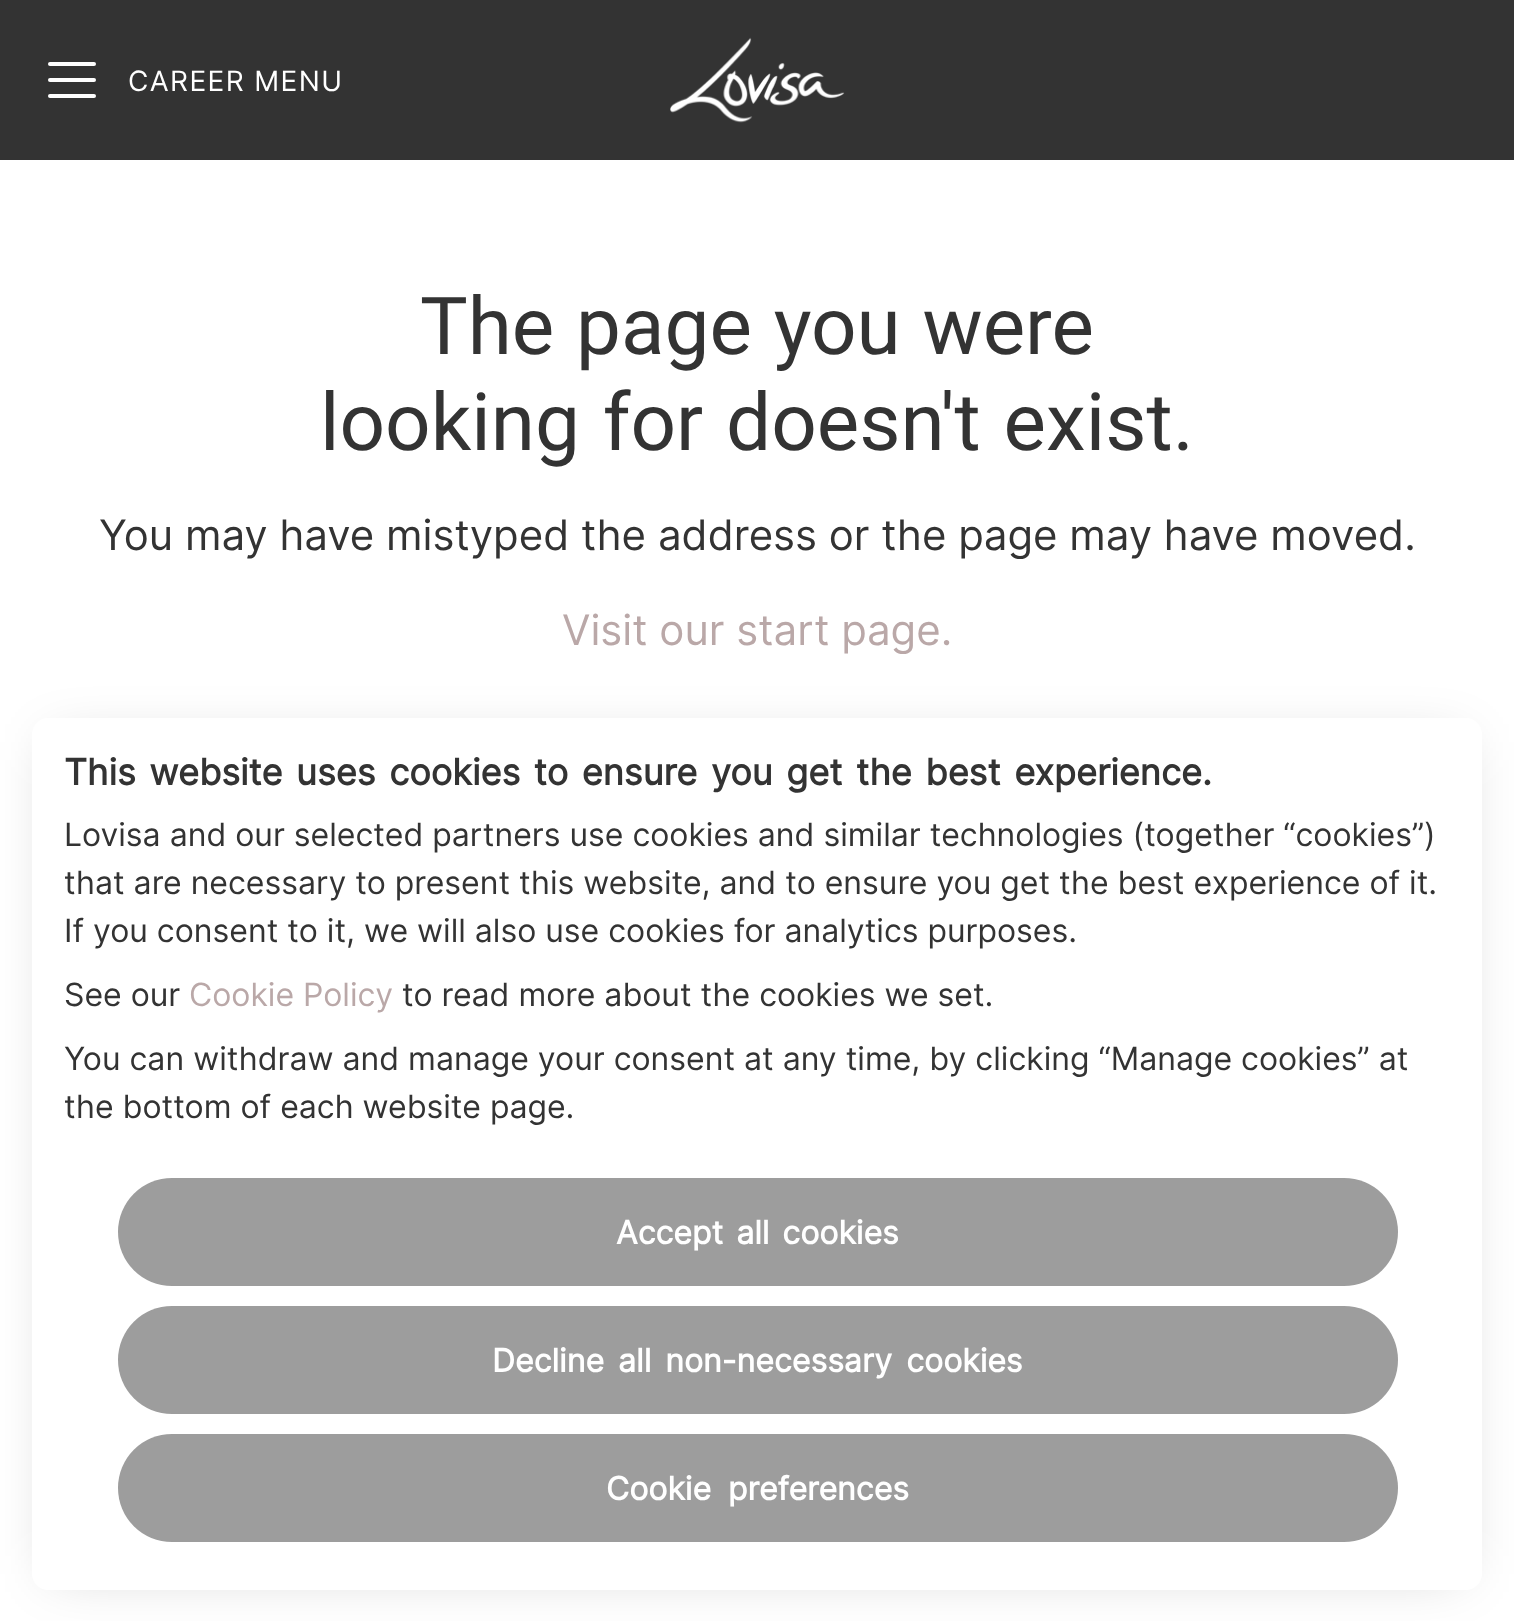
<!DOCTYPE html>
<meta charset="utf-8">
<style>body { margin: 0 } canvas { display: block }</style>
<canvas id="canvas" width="1514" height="1621"></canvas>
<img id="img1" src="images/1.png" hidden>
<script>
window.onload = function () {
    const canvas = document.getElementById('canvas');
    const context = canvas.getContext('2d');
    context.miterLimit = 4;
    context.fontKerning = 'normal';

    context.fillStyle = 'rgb(255, 255, 255)';
    context.fillRect(0, 0, 1514, 1621);
    context.fillStyle = 'rgb(51, 51, 51)';
    context.fillRect(0, 0, 1514, 160);
    context.fillStyle = 'rgb(255, 255, 255)';
    context.beginPath();
    context.roundRect(48, 62, 48, 4, 2);
    context.fill();
    context.beginPath();
    context.roundRect(48, 78, 48, 4, 2);
    context.fill();
    context.beginPath();
    context.roundRect(48, 94, 48, 4, 2);
    context.fill();
    context.drawImage(document.getElementById('img1'), 670, 37, 175, 86);
    context.fillStyle = 'rgba(0, 0, 0, 0.18)';
    context.filter = 'blur(27px)';
    context.beginPath();
    context.rect(52, 742, 1410, 832);
    context.fill();
    context.filter = 'none';
    context.fillStyle = 'rgb(255, 255, 255)';
    context.beginPath();
    context.roundRect(32, 718, 1450, 872, 16);
    context.fill();
    context.fillStyle = 'rgb(157, 157, 157)';
    context.beginPath();
    context.roundRect(118, 1178, 1280, 108, 54);
    context.fill();
    context.beginPath();
    context.roundRect(118, 1306, 1280, 108, 54);
    context.fill();
    context.beginPath();
    context.roundRect(118, 1434, 1280, 108, 54);
    context.fill();
    context.letterSpacing = '1.4px';
    context.font = '28px Inter';
    context.fillStyle = 'rgb(255, 255, 255)';
    context.fillText('CAREER MENU', 128, 91);
    context.letterSpacing = '0px';
    context.wordSpacing = '2px';
    context.font = '80px Roboto';
    context.fillStyle = 'rgb(51, 51, 51)';
    context.fillText('The page you were', 420, 354);
    context.wordSpacing = '3px';
    context.fillText('looking for doesn\'t exist.', 320, 450);
    context.wordSpacing = '0px';
    context.font = '42px Inter';
    context.fillText('You may have mistyped the address or the page may have moved.', 99, 550);
    context.fillStyle = 'rgb(186, 168, 168)';
    context.fillText('Visit our start page.', 562, 645);
    context.wordSpacing = '3.5px';
    context.font = 'bold 36px Inter';
    context.fillStyle = 'rgb(51, 51, 51)';
    context.fillText('This website uses cookies to ensure you get the best experience.', 64, 785);
    context.wordSpacing = '0px';
    context.font = '32px Inter';
    context.fillText('Lovisa and our selected partners use cookies and similar technologies (together “cookies”)', 64, 846);
    context.fillText('that are necessary to present this website, and to ensure you get the best experience of it.', 64, 894);
    context.fillText('If you consent to it, we will also use cookies for analytics purposes.', 64, 942);
    context.fillText('See our', 64, 1006);
    context.fillStyle = 'rgb(186, 168, 168)';
    context.fillText('Cookie Policy', 189, 1006);
    context.fillStyle = 'rgb(51, 51, 51)';
    context.fillText('to read more about the cookies we set.', 402, 1006);
    context.fillText('You can withdraw and manage your consent at any time, by clicking “Manage cookies” at', 64, 1070);
    context.fillText('the bottom of each website page.', 64, 1118);
    context.wordSpacing = '4px';
    context.font = 'bold 32px Inter';
    context.fillStyle = 'rgb(255, 255, 255)';
    context.fillText('Accept all cookies', 616, 1244);
    context.wordSpacing = '5px';
    context.fillText('Decline all non-necessary cookies', 492, 1372);
    context.wordSpacing = '8px';
    context.fillText('Cookie preferences', 606, 1500);
};
</script>
